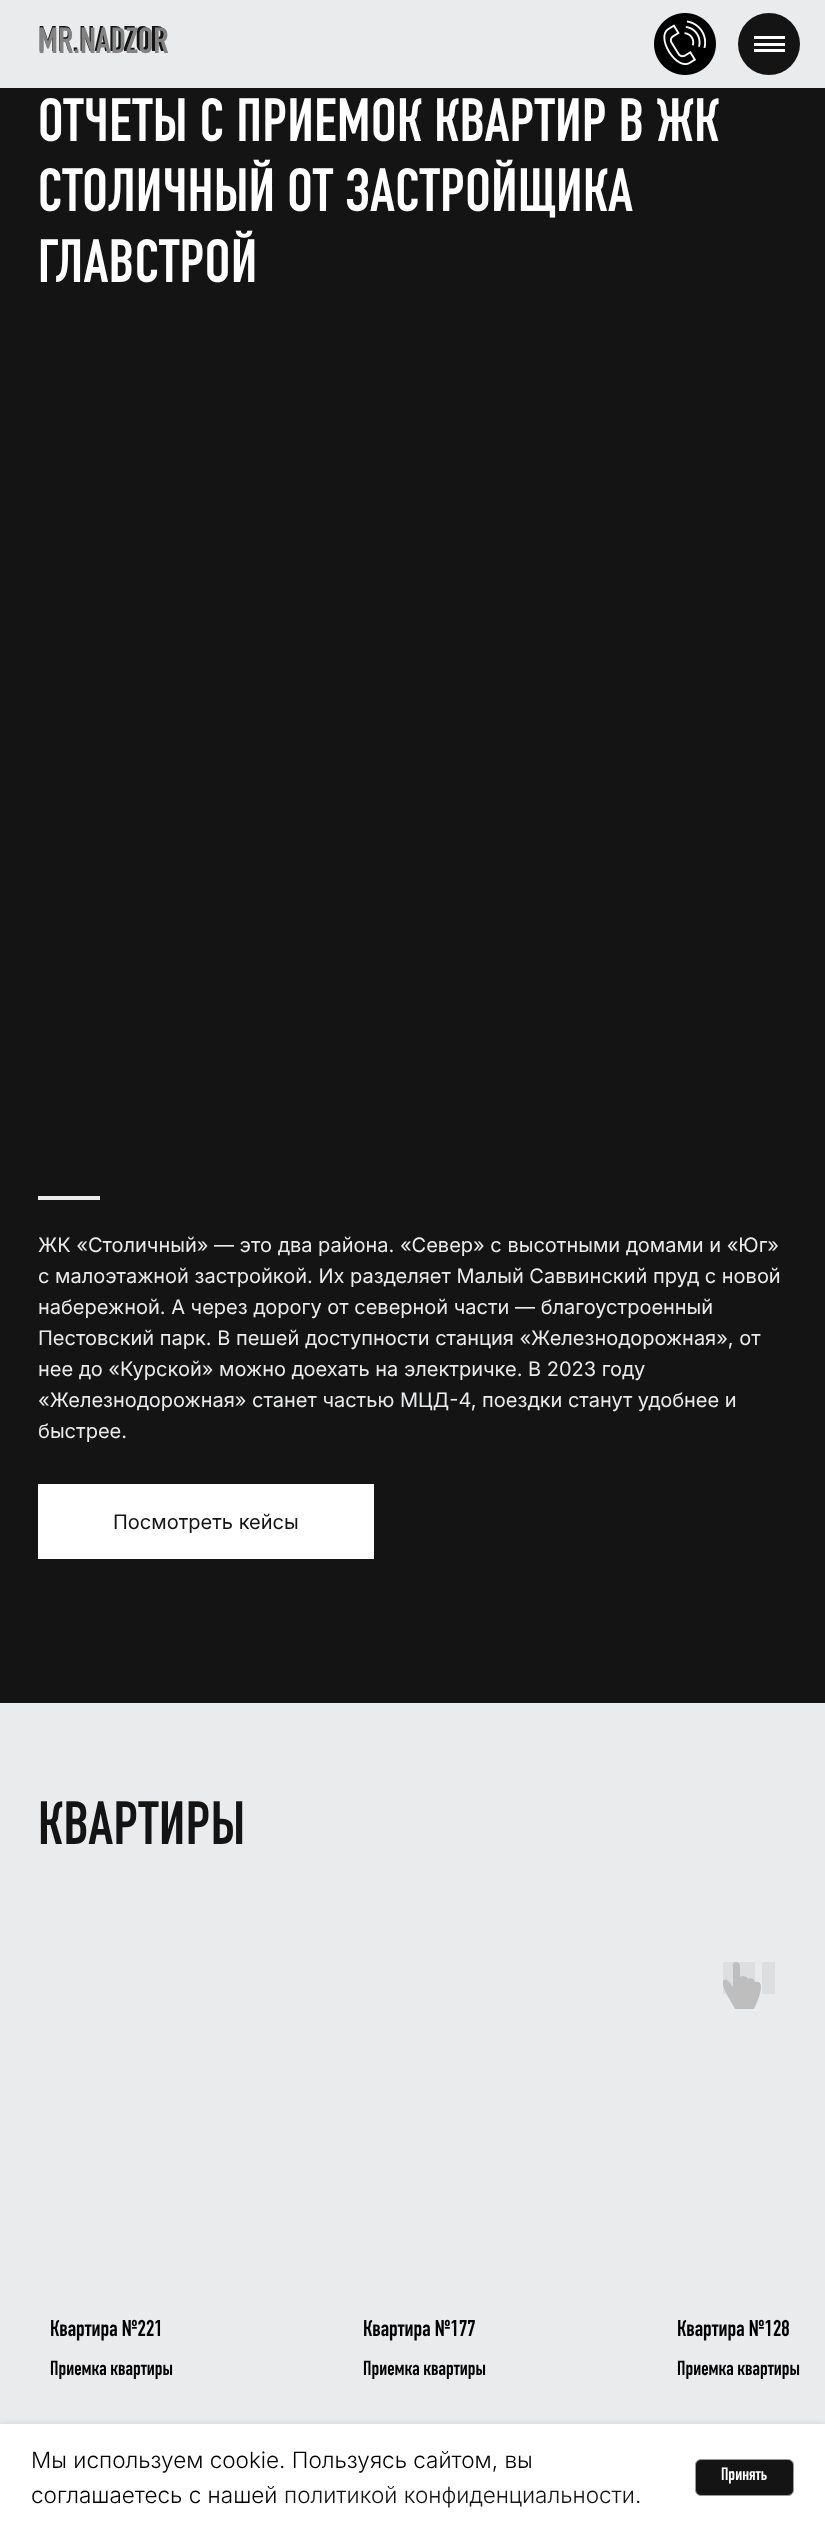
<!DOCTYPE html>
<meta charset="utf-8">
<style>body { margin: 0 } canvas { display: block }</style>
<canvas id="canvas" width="825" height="2531"></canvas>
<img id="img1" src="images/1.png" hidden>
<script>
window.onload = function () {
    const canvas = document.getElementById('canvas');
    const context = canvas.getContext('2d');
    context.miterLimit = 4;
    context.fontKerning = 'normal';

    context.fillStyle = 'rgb(20, 20, 20)';
    context.fillRect(0, 0, 825, 2531);
    context.fillStyle = 'rgb(234, 235, 237)';
    context.fillRect(0, 0, 825, 88);
    context.drawImage(document.getElementById('img1'), 654, 13, 62, 62);
    context.fillStyle = 'rgb(20, 20, 20)';
    context.beginPath();
    context.arc(769, 44, 31, 0, 2 * Math.PI);
    context.fill();
    context.fillStyle = 'rgb(255, 255, 255)';
    context.fillRect(754, 36, 31, 3);
    context.fillRect(754, 43, 31, 3);
    context.fillRect(754, 49, 31, 3);
    context.fillStyle = 'rgb(234, 235, 237)';
    context.fillRect(0, 1703, 825, 721);
    context.fillStyle = 'rgba(0, 0, 0, 0.1)';
    context.filter = 'blur(3px)';
    context.beginPath();
    context.rect(0, 2424, 825, 107);
    context.fill();
    context.filter = 'none';
    context.fillStyle = 'rgb(255, 255, 255)';
    context.fillRect(0, 2424, 825, 107);
    context.fillStyle = 'rgb(20, 20, 20)';
    context.beginPath();
    context.roundRect(695.5, 2459.5, 98, 36, 5.5);
    context.fill();
    context.strokeStyle = 'rgb(153, 153, 153)';
    context.stroke();
    context.fillStyle = 'rgb(234, 235, 237)';
    context.fillRect(38, 1196, 62, 4);
    context.fillStyle = 'rgb(255, 255, 255)';
    context.fillRect(38, 1484, 336, 75);
    context.fillStyle = 'rgb(221, 222, 223)';
    context.beginPath();
    context.roundRect(723, 1962, 32, 32, 1);
    context.fill();
    context.save();
    context.beginPath();
    context.rect(723, 1960, 52, 53);
    context.clip();
    context.fillStyle = 'rgb(190, 190, 190)';
    context.beginPath();
    context.moveTo(735, 2009);
    context.bezierCurveTo(731, 2001, 725, 1993, 723, 1985);
    context.bezierCurveTo(723, 1984, 722, 1982, 723, 1981);
    context.bezierCurveTo(727, 1976, 731, 1985, 733, 1987);
    context.lineTo(733, 1967);
    context.bezierCurveTo(733, 1967, 732, 1962, 736, 1962);
    context.bezierCurveTo(740, 1962, 740, 1967, 740, 1967);
    context.lineTo(740, 1977);
    context.bezierCurveTo(742, 1975, 747, 1976, 748, 1979);
    context.bezierCurveTo(748, 1979, 753, 1976, 755, 1982);
    context.bezierCurveTo(768, 1979, 756, 2005, 754, 2009);
    context.closePath();
    context.fill();
    context.restore();
    context.beginPath();
    context.roundRect(762, 1962, 13, 32, [1, 0, 0, 1]);
    context.fill();
    context.font = 'bold 35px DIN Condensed';
    context.fillStyle = 'rgb(20, 20, 20)';
    context.fillText('MR.NADZOR', 38, 51);
    context.font = 'bold 36px DIN Condensed';
    context.fillStyle = 'rgb(131, 131, 132)';
    context.fillText('MR.NADZOR', 38, 53);
    context.font = '300 22.5px Inter';
    context.fillStyle = 'rgb(0, 0, 0)';
    context.fillText('Мы используем cookie. Пользуясь сайтом, вы', 31, 2468);
    context.fillText('соглашаетесь с нашей', 31, 2503);
    context.fillStyle = 'rgb(20, 20, 20)';
    context.fillText('политикой конфиденциальности.', 284, 2503);
    context.font = 'bold 17.5px DIN Condensed';
    context.fillStyle = 'rgb(255, 255, 255)';
    context.fillText('Принять', 721, 2480);
    context.letterSpacing = '0.6px';
    context.font = 'bold 60px DIN Condensed';
    context.fillText('ОТЧЕТЫ С ПРИЕМОК КВАРТИР В ЖК', 38, 141);
    context.fillText('СТОЛИЧНЫЙ ОТ ЗАСТРОЙЩИКА', 38, 211);
    context.fillText('ГЛАВСТРОЙ', 38, 282);
    context.letterSpacing = '0px';
    context.font = '20px Inter';
    context.fillStyle = 'rgb(234, 235, 237)';
    context.fillText('ЖК «Столичный» — это два района. «Север» с высотными домами и «Юг»', 38, 1252);
    context.fillText('с малоэтажной застройкой. Их разделяет Малый Саввинский пруд с новой', 38, 1283);
    context.fillText('набережной. А через дорогу от северной части — благоустроенный', 38, 1314);
    context.fillText('Пестовский парк. В пешей доступности станция «Железнодорожная», от', 38, 1345);
    context.fillText('нее до «Курской» можно доехать на электричке. В 2023 году', 38, 1376);
    context.fillText('«Железнодорожная» станет частью МЦД-4, поездки станут удобнее и', 38, 1407);
    context.fillText('быстрее.', 38, 1438);
    context.fillStyle = 'rgb(20, 20, 20)';
    context.fillText('Посмотреть кейсы', 113, 1529);
    context.letterSpacing = '0.6px';
    context.font = 'bold 60px DIN Condensed';
    context.fillText('КВАРТИРЫ', 38, 1844);
    context.letterSpacing = '0px';
    context.font = 'bold 22.5px DIN Condensed';
    context.fillStyle = 'rgb(0, 0, 0)';
    context.fillText('Квартира №221', 50, 2336);
    context.font = 'bold 20px DIN Condensed';
    context.fillText('Приемка квартиры', 50, 2375);
    context.font = 'bold 22.5px DIN Condensed';
    context.fillText('Квартира №177', 363, 2336);
    context.font = 'bold 20px DIN Condensed';
    context.fillText('Приемка квартиры', 363, 2375);
    context.font = 'bold 22.5px DIN Condensed';
    context.fillText('Квартира №128', 677, 2336);
    context.font = 'bold 20px DIN Condensed';
    context.fillText('Приемка квартиры', 677, 2375);
};
</script>
